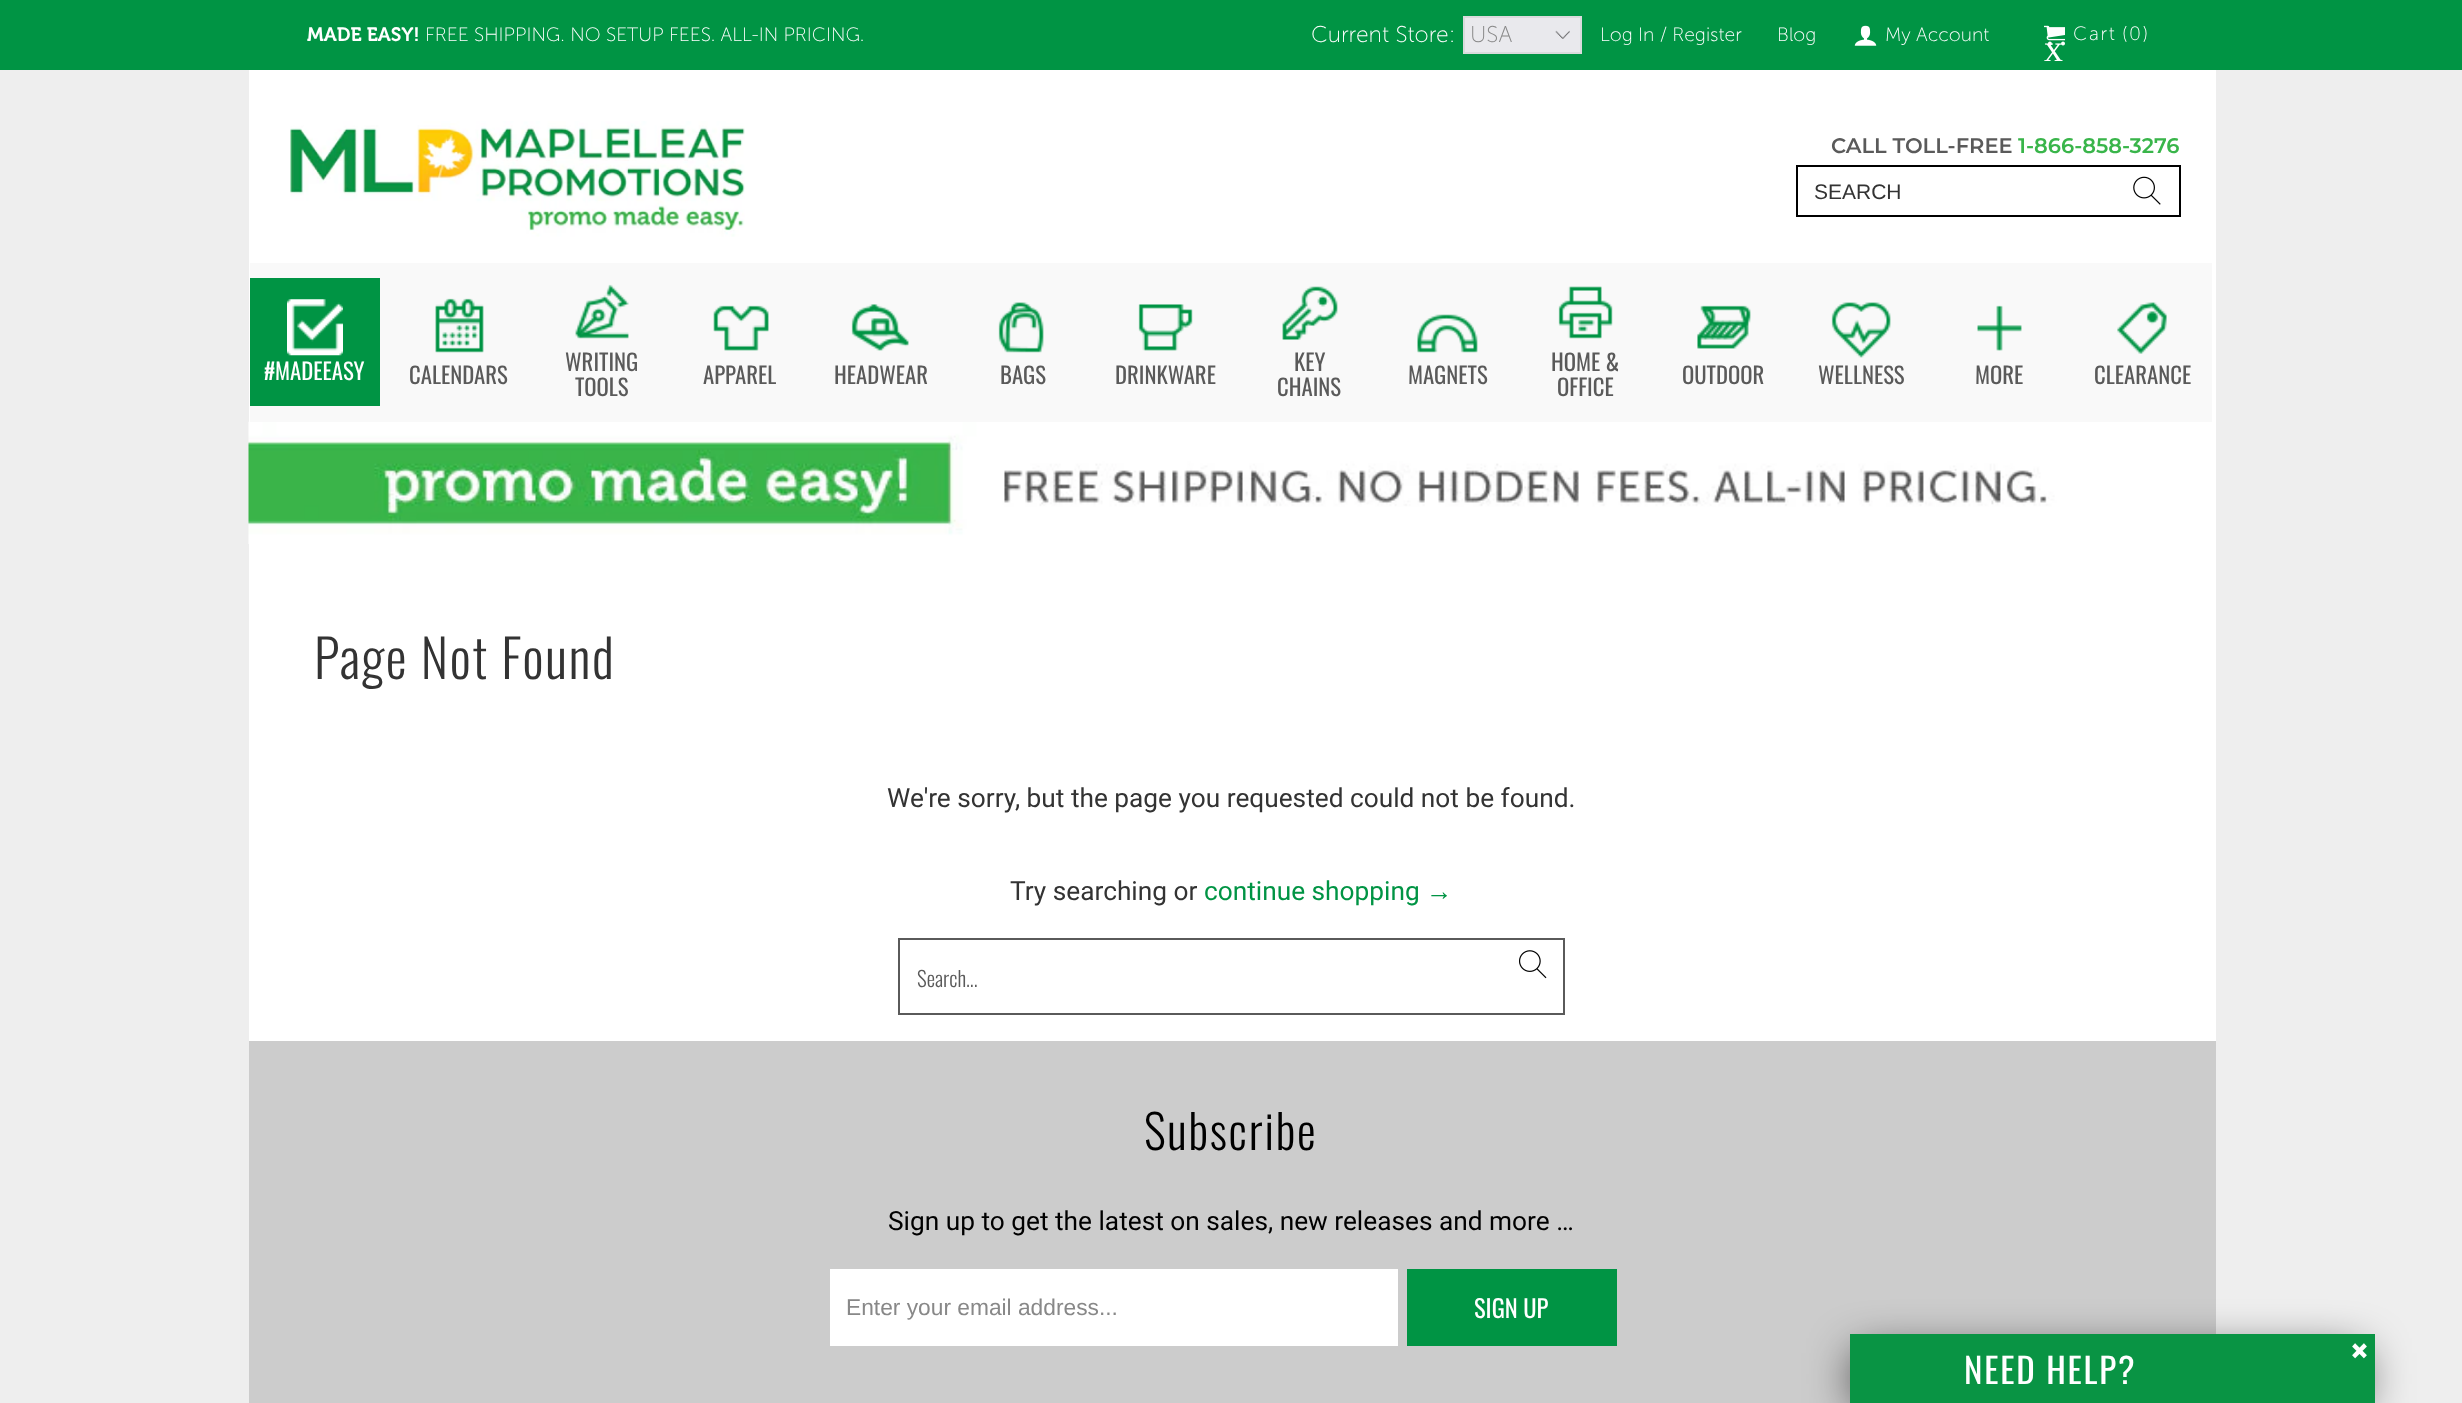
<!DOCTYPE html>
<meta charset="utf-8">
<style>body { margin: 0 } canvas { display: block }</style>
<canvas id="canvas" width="2462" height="1403"></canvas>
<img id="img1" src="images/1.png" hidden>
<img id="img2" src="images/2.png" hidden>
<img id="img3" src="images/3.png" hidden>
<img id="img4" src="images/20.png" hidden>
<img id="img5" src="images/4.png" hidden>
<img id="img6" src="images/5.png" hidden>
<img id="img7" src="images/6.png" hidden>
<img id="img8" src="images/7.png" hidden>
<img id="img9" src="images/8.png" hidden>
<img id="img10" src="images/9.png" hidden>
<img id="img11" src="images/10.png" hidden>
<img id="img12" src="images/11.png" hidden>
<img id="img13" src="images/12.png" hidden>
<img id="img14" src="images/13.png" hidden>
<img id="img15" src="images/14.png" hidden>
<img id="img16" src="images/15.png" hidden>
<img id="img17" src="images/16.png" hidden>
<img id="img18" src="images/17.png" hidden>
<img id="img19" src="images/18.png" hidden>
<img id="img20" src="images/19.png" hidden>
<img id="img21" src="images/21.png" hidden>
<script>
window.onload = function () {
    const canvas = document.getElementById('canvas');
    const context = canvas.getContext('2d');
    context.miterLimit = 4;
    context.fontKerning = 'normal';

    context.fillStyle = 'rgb(238, 238, 238)';
    context.fillRect(0, 0, 2462, 1403);
    context.fillStyle = 'rgb(0, 148, 68)';
    context.fillRect(0, 0, 2462, 70);
    context.fillStyle = 'rgb(233, 233, 237)';
    context.fillRect(1465, 18, 115, 34);
    context.drawImage(document.getElementById('img1'), 1555, 30, 15, 9);
    context.strokeStyle = 'rgb(217, 219, 220)';
    context.lineWidth = 2;
    context.strokeRect(1464, 17, 117, 36);
    context.drawImage(document.getElementById('img2'), 1854, 25, 23, 21);
    context.drawImage(document.getElementById('img3'), 2044, 25, 21, 21);
    context.fillStyle = 'rgb(255, 255, 255)';
    context.fillRect(249, 422, 1967, 619);
    context.drawImage(document.getElementById('img4'), 248, 421, 1967, 123);
    context.fillRect(249, 70, 1967, 352);
    context.drawImage(document.getElementById('img5'), 290, 121, 455, 116);
    context.strokeStyle = 'rgb(0, 0, 0)';
    context.strokeRect(1797, 166, 383, 50);
    context.drawImage(document.getElementById('img6'), 2133, 176, 28, 29);
    context.fillStyle = 'rgb(249, 249, 249)';
    context.fillRect(250, 263, 1962, 159);
    context.fillStyle = 'rgb(0, 148, 68)';
    context.fillRect(250, 278, 130, 128);
    context.drawImage(document.getElementById('img7'), 287, 299, 56, 57);
    context.drawImage(document.getElementById('img8'), 435, 298, 49, 55);
    context.drawImage(document.getElementById('img9'), 575, 284, 54, 55);
    context.drawImage(document.getElementById('img10'), 713, 305, 56, 46);
    context.drawImage(document.getElementById('img11'), 851, 304, 58, 47);
    context.drawImage(document.getElementById('img12'), 998, 302, 46, 51);
    context.drawImage(document.getElementById('img13'), 1138, 304, 55, 47);
    context.drawImage(document.getElementById('img14'), 1282, 286, 56, 54);
    context.drawImage(document.getElementById('img15'), 1417, 314, 61, 39);
    context.drawImage(document.getElementById('img16'), 1558, 286, 55, 53);
    context.drawImage(document.getElementById('img17'), 1697, 305, 54, 44);
    context.drawImage(document.getElementById('img18'), 1831, 302, 60, 56);
    context.drawImage(document.getElementById('img19'), 1977, 305, 45, 46);
    context.drawImage(document.getElementById('img20'), 2117, 302, 50, 52);
    context.strokeStyle = 'rgb(90, 90, 90)';
    context.strokeRect(899, 939, 665, 75);
    context.drawImage(document.getElementById('img21'), 1519, 950, 28, 29);
    context.fillStyle = 'rgb(204, 204, 204)';
    context.fillRect(249, 1041, 1967, 362);
    context.fillStyle = 'rgb(255, 255, 255)';
    context.fillRect(830, 1269, 568, 77);
    context.fillStyle = 'rgb(0, 148, 68)';
    context.fillRect(1407, 1269, 210, 77);
    context.fillStyle = 'rgba(0, 0, 0, 0.75)';
    context.filter = 'blur(23px)';
    context.beginPath();
    context.rect(1855, 1353, 508, 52);
    context.fill();
    context.filter = 'none';
    context.fillStyle = 'rgb(9, 148, 68)';
    context.fillRect(1850, 1334, 525, 69);
    context.font = '600 19.25px "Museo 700"';
    context.fillStyle = 'rgb(255, 255, 255)';
    context.fillText('MADE EASY!', 307, 41);
    context.font = '300 19.25px "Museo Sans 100"';
    context.fillText('FREE SHIPPING. NO SETUP FEES. ALL-IN PRICING.', 425, 41);
    context.font = '300 22.75px "Museo Sans 100"';
    context.fillText('Current Store:', 1311, 42);
    context.fillStyle = 'rgb(136, 136, 136)';
    context.fillText('USA', 1470, 42);
    context.font = '300 19.25px "Museo Sans 100"';
    context.fillStyle = 'rgb(255, 255, 255)';
    context.fillText('Log In / Register', 1600, 41);
    context.fillText('Blog', 1777, 41);
    context.fillText('My Account', 1885, 41);
    context.letterSpacing = '1.75px';
    context.fillText('Cart', 2073, 40);
    context.fillText('(0)', 2122, 40);
    context.font = '38px Liberation Serif';
    context.fillText('x', 2044, 61);
    context.letterSpacing = '0px';
    context.font = '600 21px Montserrat';
    context.fillStyle = 'rgb(90, 90, 90)';
    context.fillText('CALL TOLL-FREE', 1831, 153);
    context.fillStyle = 'rgb(57, 181, 74)';
    context.fillText('1-866-858-3276', 2018, 153);
    context.font = '21px Liberation Sans';
    context.fillStyle = 'rgb(51, 51, 51)';
    context.fillText('SEARCH', 1814, 199);
    context.font = '22.75px Oswald';
    context.fillStyle = 'rgb(255, 255, 255)';
    context.fillText('#MADEEASY', 264, 380);
    context.fillStyle = 'rgb(90, 90, 90)';
    context.fillText('CALENDARS', 409, 384);
    context.fillText('WRITING', 565, 371);
    context.fillText('TOOLS', 575, 396);
    context.fillText('APPAREL', 703, 384);
    context.fillText('HEADWEAR', 834, 384);
    context.fillText('BAGS', 1000, 384);
    context.fillText('DRINKWARE', 1115, 384);
    context.fillText('KEY', 1294, 371);
    context.fillText('CHAINS', 1277, 396);
    context.fillText('MAGNETS', 1408, 384);
    context.fillText('HOME &', 1551, 371);
    context.fillText('OFFICE', 1557, 396);
    context.fillText('OUTDOOR', 1682, 384);
    context.fillText('WELLNESS', 1818, 384);
    context.fillText('MORE', 1975, 384);
    context.fillText('CLEARANCE', 2094, 384);
    context.letterSpacing = '1.75px';
    context.font = '300 52.5px Oswald';
    context.fillStyle = 'rgb(51, 51, 51)';
    context.fillText('Page Not Found', 314, 679);
    context.letterSpacing = '0px';
    context.font = '26.25px Roboto';
    context.fillText('We\'re sorry, but the page you requested could not be found.', 887, 807);
    context.fillText('Try searching or', 1010, 900);
    context.fillStyle = 'rgb(0, 148, 68)';
    context.fillText('continue shopping', 1204, 900);
    context.font = '26.25px Liberation Sans';
    context.fillText('→', 1426, 900);
    context.font = '300 21px Oswald';
    context.fillStyle = 'rgb(90, 90, 90)';
    context.fillText('Search...', 917, 987);
    context.letterSpacing = '1.75px';
    context.font = '300 47px Oswald';
    context.fillStyle = 'rgb(0, 0, 0)';
    context.fillText('Subscribe', 1144, 1150);
    context.letterSpacing = '0px';
    context.font = '26.25px Roboto';
    context.fillText('Sign up to get the latest on sales, new releases and more …', 888, 1230);
    context.font = '22.75px Liberation Sans';
    context.fillStyle = 'rgb(136, 136, 136)';
    context.fillText('Enter your email address...', 846, 1315);
    context.font = '24.5px Oswald';
    context.fillStyle = 'rgb(255, 255, 255)';
    context.fillText('SIGN UP', 1474, 1318);
    context.font = 'bold 35px Montserrat';
    context.fillText('×', 2349, 1363);
    context.letterSpacing = '1.75px';
    context.font = '35px Oswald';
    context.fillText('NEED HELP?', 1964, 1384);
};
</script>
